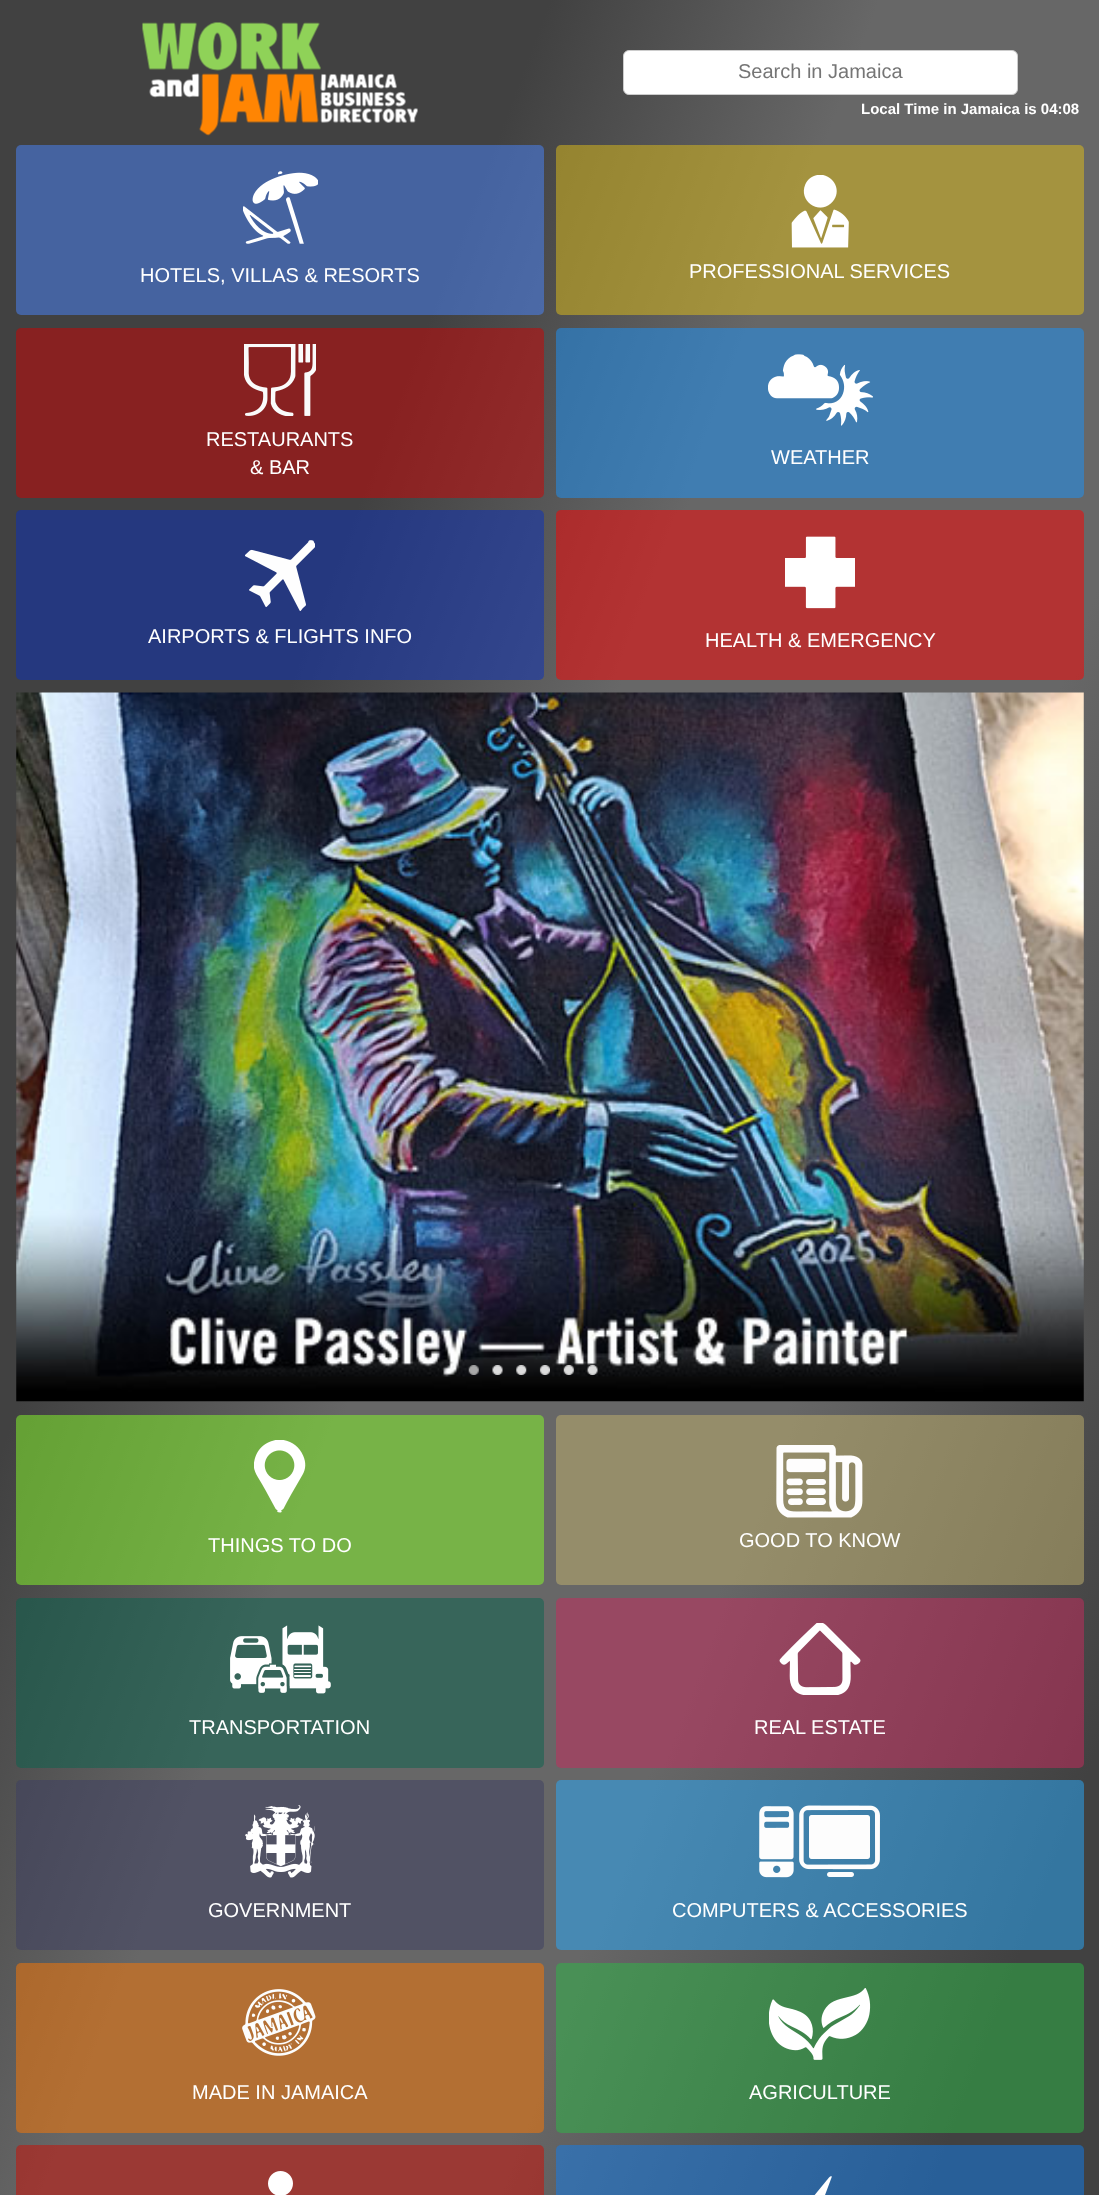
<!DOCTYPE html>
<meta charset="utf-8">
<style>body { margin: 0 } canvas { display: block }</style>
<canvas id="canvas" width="1099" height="2195"></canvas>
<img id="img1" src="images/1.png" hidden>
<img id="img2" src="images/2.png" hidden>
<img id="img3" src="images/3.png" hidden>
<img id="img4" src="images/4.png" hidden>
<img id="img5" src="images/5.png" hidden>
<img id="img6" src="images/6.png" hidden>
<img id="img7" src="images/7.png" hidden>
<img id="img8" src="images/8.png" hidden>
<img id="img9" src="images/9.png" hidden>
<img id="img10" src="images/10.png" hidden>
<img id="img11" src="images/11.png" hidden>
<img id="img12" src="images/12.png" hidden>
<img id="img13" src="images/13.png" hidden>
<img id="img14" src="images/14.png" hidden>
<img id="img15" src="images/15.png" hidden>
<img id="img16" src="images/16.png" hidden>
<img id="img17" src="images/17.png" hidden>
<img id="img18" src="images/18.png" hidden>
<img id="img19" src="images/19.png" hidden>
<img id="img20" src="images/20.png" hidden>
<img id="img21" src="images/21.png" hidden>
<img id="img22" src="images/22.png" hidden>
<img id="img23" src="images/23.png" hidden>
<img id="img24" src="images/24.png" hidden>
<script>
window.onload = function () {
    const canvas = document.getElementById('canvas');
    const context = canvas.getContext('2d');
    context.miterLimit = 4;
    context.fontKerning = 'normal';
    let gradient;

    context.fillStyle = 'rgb(255, 255, 255)';
    context.fillRect(0, 0, 1099, 2195);
    gradient = context.createLinearGradient(-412, 1089, 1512, 1817);
    gradient.addColorStop(0, 'rgb(65, 65, 65)');
    gradient.addColorStop(0.25, 'rgb(65, 65, 65)');
    gradient.addColorStop(0.4, 'rgb(103, 103, 103)');
    gradient.addColorStop(0.6, 'rgb(103, 103, 103)');
    gradient.addColorStop(0.8, 'rgb(65, 65, 65)');
    gradient.addColorStop(1, 'rgb(65, 65, 65)');
    context.fillStyle = gradient;
    context.fillRect(0, 0, 1099, 2195);
    context.drawImage(document.getElementById('img1'), 142, 22, 276, 114);
    context.fillStyle = 'rgb(255, 255, 255)';
    context.beginPath();
    context.roundRect(623.5, 50.5, 394, 44, 5.5);
    context.fill();
    context.strokeStyle = 'rgb(204, 204, 204)';
    context.stroke();
    context.fillStyle = 'rgba(73, 133, 255, 0.5)';
    context.beginPath();
    context.roundRect(16, 145, 528, 170, 5);
    context.fill();
    context.drawImage(document.getElementById('img2'), 243, 171, 75, 73);
    context.fillStyle = 'rgba(226, 192, 24, 0.5)';
    context.beginPath();
    context.roundRect(556, 145, 528, 170, 5);
    context.fill();
    context.drawImage(document.getElementById('img3'), 791, 175, 58, 73);
    context.fillStyle = 'rgba(208, 2, 2, 0.5)';
    context.beginPath();
    context.roundRect(16, 328, 528, 170, 5);
    context.fill();
    context.drawImage(document.getElementById('img4'), 244, 344, 72, 72);
    context.fillStyle = 'rgba(25, 147, 251, 0.5)';
    context.beginPath();
    context.roundRect(556, 328, 528, 170, 5);
    context.fill();
    context.drawImage(document.getElementById('img5'), 768, 354, 105, 72);
    context.fillStyle = 'rgba(9, 47, 190, 0.5)';
    context.beginPath();
    context.roundRect(16, 510, 528, 170, 5);
    context.fill();
    context.drawImage(document.getElementById('img6'), 245, 540, 70, 71);
    context.fillStyle = 'rgba(255, 0, 0, 0.5)';
    context.beginPath();
    context.roundRect(556, 510, 528, 170, 5);
    context.fill();
    context.drawImage(document.getElementById('img7'), 785, 536, 70, 73);
    context.drawImage(document.getElementById('img8'), 16, 692, 1068, 710);
    context.drawImage(document.getElementById('img9'), 468, 1365, 11, 10);
    context.drawImage(document.getElementById('img10'), 492, 1365, 11, 10);
    context.drawImage(document.getElementById('img11'), 516, 1365, 11, 10);
    context.drawImage(document.getElementById('img12'), 539, 1365, 11, 10);
    context.drawImage(document.getElementById('img13'), 563, 1365, 11, 10);
    context.drawImage(document.getElementById('img14'), 587, 1365, 11, 10);
    context.fillStyle = 'rgba(136, 255, 40, 0.5)';
    context.beginPath();
    context.roundRect(16, 1415, 528, 170, 5);
    context.fill();
    context.drawImage(document.getElementById('img15'), 254, 1440, 52, 73);
    context.fillStyle = 'rgba(196, 179, 109, 0.5)';
    context.beginPath();
    context.roundRect(556, 1415, 528, 170, 5);
    context.fill();
    context.drawImage(document.getElementById('img16'), 776, 1445, 87, 73);
    context.fillStyle = 'rgba(8, 100, 77, 0.5)';
    context.beginPath();
    context.roundRect(16, 1598, 528, 170, 5);
    context.fill();
    context.drawImage(document.getElementById('img17'), 230, 1625, 101, 69);
    context.fillStyle = 'rgba(202, 41, 94, 0.5)';
    context.beginPath();
    context.roundRect(556, 1598, 528, 170, 5);
    context.fill();
    context.drawImage(document.getElementById('img18'), 779, 1623, 82, 72);
    context.fillStyle = 'rgba(60, 62, 97, 0.5)';
    context.beginPath();
    context.roundRect(16, 1780, 528, 170, 5);
    context.fill();
    context.drawImage(document.getElementById('img19'), 245, 1805, 70, 73);
    context.fillStyle = 'rgba(39, 171, 255, 0.5)';
    context.beginPath();
    context.roundRect(556, 1780, 528, 170, 5);
    context.fill();
    context.drawImage(document.getElementById('img20'), 759, 1805, 121, 73);
    context.fillStyle = 'rgba(255, 120, 0, 0.5)';
    context.beginPath();
    context.roundRect(16, 1963, 528, 170, 5);
    context.fill();
    context.drawImage(document.getElementById('img21'), 242, 1989, 74, 67);
    context.fillStyle = 'rgba(43, 186, 70, 0.5)';
    context.beginPath();
    context.roundRect(556, 1963, 528, 170, 5);
    context.fill();
    context.drawImage(document.getElementById('img22'), 769, 1988, 102, 72);
    context.fillStyle = 'rgba(208, 11, 2, 0.5)';
    context.beginPath();
    context.roundRect(16, 2145, 528, 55, 5);
    context.fill();
    context.drawImage(document.getElementById('img23'), 268, 2171, 25, 24);
    context.fillStyle = 'rgba(15, 126, 240, 0.5)';
    context.beginPath();
    context.roundRect(556, 2145, 528, 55, 5);
    context.fill();
    context.drawImage(document.getElementById('img24'), 814, 2176, 18, 19);
    context.font = '20px Liberation Sans';
    context.fillStyle = 'rgb(117, 117, 117)';
    context.fillText('Search in Jamaica', 738, 78);
    context.font = 'bold 15px Liberation Sans';
    context.fillStyle = 'rgb(255, 255, 255)';
    context.fillText('Local Time in Jamaica is 04:08', 861, 114);
    context.font = '20px Liberation Sans';
    context.fillText('HOTELS, VILLAS & RESORTS', 140, 282);
    context.fillText('PROFESSIONAL SERVICES', 689, 278);
    context.fillText('RESTAURANTS', 206, 446);
    context.fillText('& BAR', 250, 474);
    context.fillText('WEATHER', 771, 464);
    context.fillText('AIRPORTS & FLIGHTS INFO', 148, 643);
    context.fillText('HEALTH & EMERGENCY', 705, 647);
    context.fillText('THINGS TO DO', 208, 1552);
    context.fillText('GOOD TO KNOW', 739, 1547);
    context.fillText('TRANSPORTATION', 189, 1734);
    context.fillText('REAL ESTATE', 754, 1734);
    context.fillText('GOVERNMENT', 208, 1917);
    context.fillText('COMPUTERS & ACCESSORIES', 672, 1917);
    context.fillText('MADE IN JAMAICA', 192, 2099);
    context.fillText('AGRICULTURE', 749, 2099);
};
</script>
